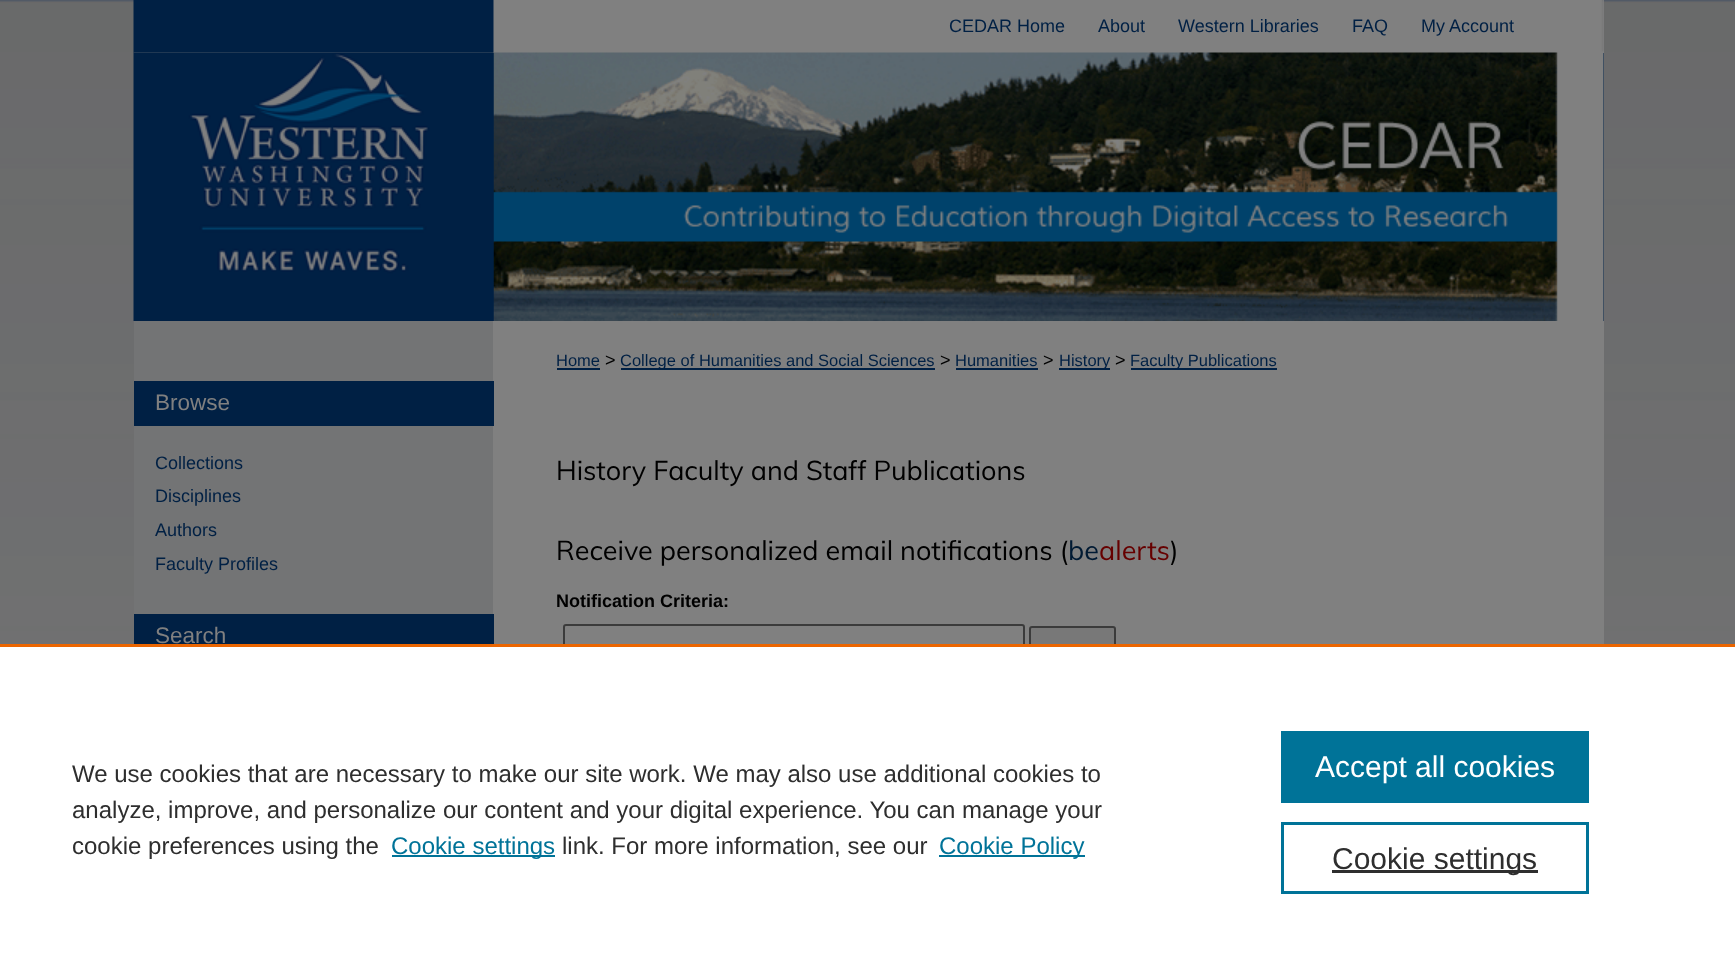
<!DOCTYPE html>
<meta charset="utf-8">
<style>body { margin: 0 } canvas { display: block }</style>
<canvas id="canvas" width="1735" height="973"></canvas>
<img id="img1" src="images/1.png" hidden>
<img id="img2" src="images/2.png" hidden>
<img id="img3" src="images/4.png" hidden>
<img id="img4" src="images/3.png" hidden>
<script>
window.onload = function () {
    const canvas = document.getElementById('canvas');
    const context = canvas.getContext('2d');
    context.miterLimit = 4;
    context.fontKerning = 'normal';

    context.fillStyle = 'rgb(255, 255, 255)';
    context.fillRect(0, 0, 1735, 973);
    context.drawImage(document.getElementById('img1'), 0, 0, 1735, 644);
    context.fillStyle = 'rgb(0, 32, 68)';
    context.fillRect(493, 53, 1111, 268);
    context.fillStyle = 'rgb(128, 128, 128)';
    context.fillRect(134, 0, 1470, 53);
    context.drawImage(document.getElementById('img2'), 133, 0, 1471, 53);
    context.drawImage(document.getElementById('img3'), 493, 52, 1111, 269);
    context.drawImage(document.getElementById('img4'), 133, 52, 361, 269);
    context.fillStyle = 'rgb(115, 116, 117)';
    context.fillRect(134, 321, 359, 293);
    context.fillStyle = 'rgb(128, 128, 128)';
    context.fillRect(493, 321, 1111, 323);
    context.fillStyle = 'rgb(0, 32, 68)';
    context.fillRect(134, 381, 360, 45);
    context.fillRect(134, 614, 360, 30);
    context.fillRect(557, 368, 43, 2);
    context.fillRect(621, 368, 314, 2);
    context.fillRect(956, 368, 82, 2);
    context.fillRect(1059, 368, 51, 2);
    context.fillRect(1131, 368, 146, 2);
    context.beginPath();
    context.roundRect(564, 625, 460, 33, 2);
    context.strokeStyle = 'rgb(59, 59, 59)';
    context.lineWidth = 2;
    context.stroke();
    context.fillStyle = 'rgb(120, 120, 120)';
    context.beginPath();
    context.roundRect(1030, 627, 85, 29, 2);
    context.fill();
    context.stroke();
    context.fillStyle = 'rgb(255, 255, 255)';
    context.fillRect(563, 647, 553, 12);
    context.fillStyle = 'rgb(235, 101, 0)';
    context.fillRect(0, 644, 1735, 3);
    context.fillStyle = 'rgb(0, 115, 152)';
    context.fillRect(392, 855, 163, 2);
    context.fillRect(939, 855, 146, 2);
    context.fillRect(1281, 731, 308, 72);
    context.strokeStyle = 'rgb(0, 115, 152)';
    context.lineWidth = 3;
    context.strokeRect(1282.5, 823.5, 305, 69);
    context.fillStyle = 'rgb(46, 46, 46)';
    context.fillRect(1332, 870, 206, 3);
    context.font = '18px Liberation Sans';
    context.fillStyle = 'rgb(0, 32, 68)';
    context.fillText('CEDAR Home', 949, 32);
    context.fillText('About', 1098, 32);
    context.fillText('Western Libraries', 1178, 32);
    context.fillText('FAQ', 1352, 32);
    context.fillText('My Account', 1421, 32);
    context.font = '22.5px Liberation Sans';
    context.fillStyle = 'rgb(128, 128, 128)';
    context.fillText('Browse', 155, 410);
    context.font = '18px Liberation Sans';
    context.fillStyle = 'rgb(0, 32, 68)';
    context.fillText('Collections', 155, 469);
    context.fillText('Disciplines', 155, 502);
    context.fillText('Authors', 155, 536);
    context.fillText('Faculty Profiles', 155, 570);
    context.font = '22.5px Liberation Sans';
    context.fillStyle = 'rgb(128, 128, 128)';
    context.fillText('Search', 155, 643);
    context.font = '16.5px Liberation Sans';
    context.fillStyle = 'rgb(0, 32, 68)';
    context.fillText('Home', 556, 366);
    context.font = '18px Liberation Sans';
    context.fillStyle = 'rgb(0, 0, 0)';
    context.fillText('>', 605, 366);
    context.font = '16.5px Liberation Sans';
    context.fillStyle = 'rgb(0, 32, 68)';
    context.fillText('College of Humanities and Social Sciences', 620, 366);
    context.font = '18px Liberation Sans';
    context.fillStyle = 'rgb(0, 0, 0)';
    context.fillText('>', 940, 366);
    context.font = '16.5px Liberation Sans';
    context.fillStyle = 'rgb(0, 32, 68)';
    context.fillText('Humanities', 955, 366);
    context.font = '18px Liberation Sans';
    context.fillStyle = 'rgb(0, 0, 0)';
    context.fillText('>', 1043, 366);
    context.font = '16.5px Liberation Sans';
    context.fillStyle = 'rgb(0, 32, 68)';
    context.fillText('History', 1059, 366);
    context.font = '18px Liberation Sans';
    context.fillStyle = 'rgb(0, 0, 0)';
    context.fillText('>', 1115, 366);
    context.font = '16.5px Liberation Sans';
    context.fillStyle = 'rgb(0, 32, 68)';
    context.fillText('Faculty Publications', 1130, 366);
    context.font = '27px Muli';
    context.fillStyle = 'rgb(0, 0, 0)';
    context.fillText('History Faculty and Staff Publications', 556, 480);
    context.fillText('Receive personalized email notifications (', 556, 560);
    context.fillStyle = 'rgb(0, 26, 51)';
    context.fillText('be', 1068, 560);
    context.fillStyle = 'rgb(102, 0, 0)';
    context.fillText('alerts', 1099, 560);
    context.fillStyle = 'rgb(0, 0, 0)';
    context.fillText(')', 1170, 560);
    context.font = 'bold 18px Liberation Sans';
    context.fillText('Notification Criteria:', 556, 607);
    context.font = '24px Liberation Sans';
    context.fillStyle = 'rgb(46, 46, 46)';
    context.fillText('We use cookies that are necessary to make our site work. We may also use additional cookies to', 72, 782);
    context.fillText('analyze, improve, and personalize our content and your digital experience. You can manage your', 72, 818);
    context.fillText('cookie preferences using the', 72, 854);
    context.fillStyle = 'rgb(0, 115, 152)';
    context.fillText('Cookie settings', 391, 854);
    context.fillStyle = 'rgb(46, 46, 46)';
    context.fillText('link. For more information, see our', 562, 854);
    context.fillStyle = 'rgb(0, 115, 152)';
    context.fillText('Cookie Policy', 939, 854);
    context.font = '30px Liberation Sans';
    context.fillStyle = 'rgb(255, 255, 255)';
    context.fillText('Accept all cookies', 1315, 777);
    context.fillStyle = 'rgb(46, 46, 46)';
    context.fillText('Cookie settings', 1332, 869);
};
</script>
